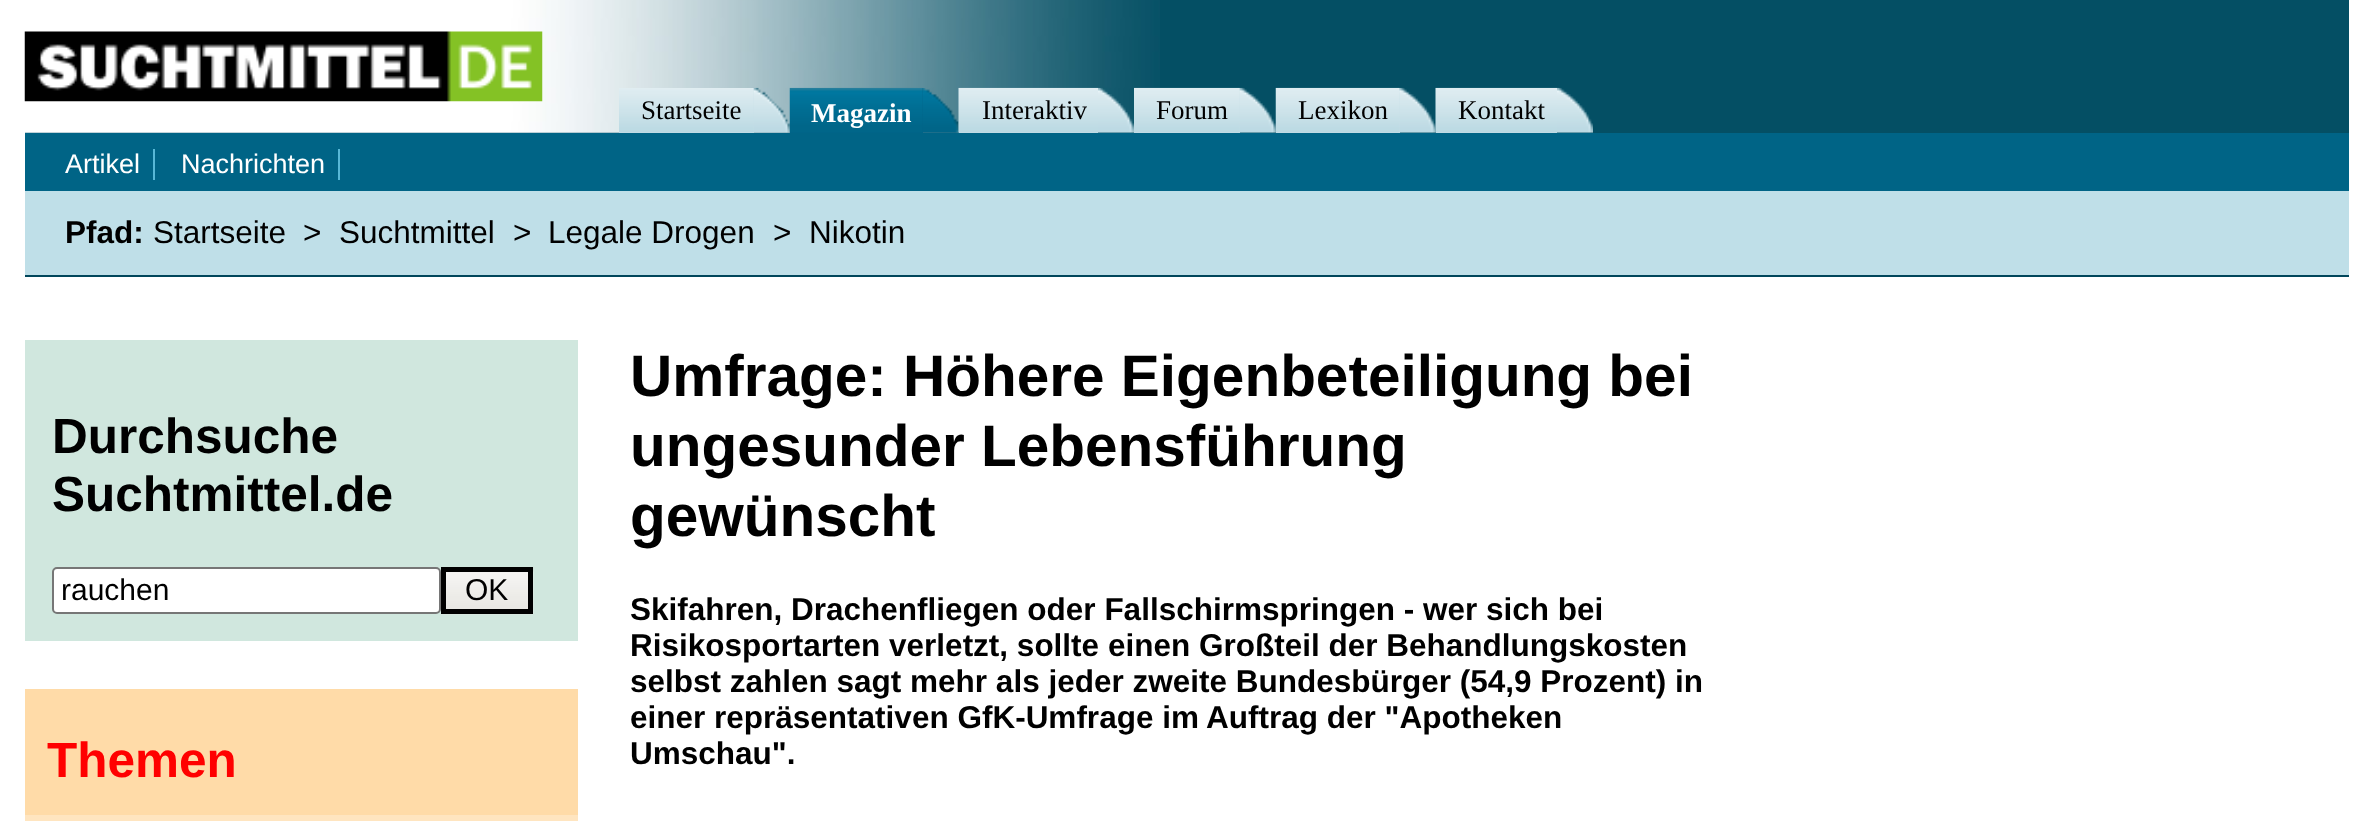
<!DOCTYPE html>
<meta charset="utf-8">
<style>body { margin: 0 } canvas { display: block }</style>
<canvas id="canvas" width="2373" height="821"></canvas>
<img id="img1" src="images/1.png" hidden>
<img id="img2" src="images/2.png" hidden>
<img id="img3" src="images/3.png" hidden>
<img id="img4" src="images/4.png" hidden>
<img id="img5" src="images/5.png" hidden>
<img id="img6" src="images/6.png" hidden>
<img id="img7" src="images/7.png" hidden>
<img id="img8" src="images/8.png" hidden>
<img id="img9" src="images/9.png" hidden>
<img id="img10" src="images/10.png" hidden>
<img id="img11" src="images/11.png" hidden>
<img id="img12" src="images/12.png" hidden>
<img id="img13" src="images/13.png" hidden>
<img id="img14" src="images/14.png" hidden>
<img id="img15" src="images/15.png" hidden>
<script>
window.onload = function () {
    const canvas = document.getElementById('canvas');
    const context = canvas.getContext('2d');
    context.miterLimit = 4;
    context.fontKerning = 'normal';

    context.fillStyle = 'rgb(255, 255, 255)';
    context.fillRect(0, 0, 2373, 821);
    context.fillStyle = 'rgb(4, 79, 100)';
    context.fillRect(25, 0, 2324, 133);
    context.drawImage(document.getElementById('img1'), 25, 0, 1135, 133);
    context.drawImage(document.getElementById('img2'), 24, 31, 519, 71);
    context.fillStyle = 'rgb(199, 223, 231)';
    context.fillRect(619, 88, 135, 45);
    context.drawImage(document.getElementById('img3'), 619, 88, 135, 45);
    context.drawImage(document.getElementById('img4'), 753, 87, 37, 46);
    context.fillStyle = 'rgb(0, 100, 134)';
    context.fillRect(790, 88, 133, 45);
    context.drawImage(document.getElementById('img5'), 789, 87, 134, 46);
    context.drawImage(document.getElementById('img6'), 922, 88, 37, 45);
    context.fillStyle = 'rgb(199, 223, 231)';
    context.fillRect(959, 132, 139, 1);
    context.drawImage(document.getElementById('img7'), 958, 87, 140, 46);
    context.drawImage(document.getElementById('img8'), 1098, 87, 36, 46);
    context.fillRect(1134, 88, 106, 45);
    context.drawImage(document.getElementById('img9'), 1134, 87, 106, 46);
    context.drawImage(document.getElementById('img10'), 1239, 87, 37, 46);
    context.fillRect(1276, 88, 124, 45);
    context.drawImage(document.getElementById('img11'), 1275, 87, 125, 46);
    context.drawImage(document.getElementById('img12'), 1399, 87, 37, 46);
    context.fillRect(1436, 132, 121, 1);
    context.drawImage(document.getElementById('img13'), 1435, 87, 122, 46);
    context.drawImage(document.getElementById('img14'), 1557, 87, 36, 46);
    context.fillStyle = 'rgb(0, 100, 134)';
    context.fillRect(25, 133, 2324, 58);
    context.fillStyle = 'rgb(88, 184, 215)';
    context.fillRect(153, 149, 2, 31);
    context.fillRect(338, 149, 2, 31);
    context.fillStyle = 'rgb(191, 223, 232)';
    context.fillRect(25, 191, 2324, 84);
    context.fillStyle = 'rgb(0, 70, 91)';
    context.fillRect(25, 275, 2324, 2);
    context.fillStyle = 'rgb(208, 231, 222)';
    context.fillRect(25, 340, 553, 301);
    context.fillStyle = 'rgb(255, 255, 255)';
    context.beginPath();
    context.roundRect(53, 568, 387, 45, 4);
    context.fill();
    context.strokeStyle = 'rgb(118, 118, 118)';
    context.lineWidth = 2;
    context.stroke();
    context.drawImage(document.getElementById('img15'), 441, 567, 93, 48);
    context.strokeStyle = 'rgb(0, 0, 0)';
    context.lineWidth = 5;
    context.strokeRect(443.5, 569.5, 87, 42);
    context.fillStyle = 'rgb(255, 219, 168)';
    context.fillRect(25, 689, 553, 126);
    context.fillStyle = 'rgb(255, 229, 192)';
    context.fillRect(25, 815, 553, 6);
    context.font = '27px Liberation Serif';
    context.fillStyle = 'rgb(0, 0, 0)';
    context.fillText('Startseite', 641, 119);
    context.font = 'bold 27px Liberation Serif';
    context.fillStyle = 'rgb(255, 255, 255)';
    context.fillText('Magazin', 811, 122);
    context.font = '27px Liberation Serif';
    context.fillStyle = 'rgb(0, 0, 0)';
    context.fillText('Interaktiv', 982, 119);
    context.fillText('Forum', 1156, 119);
    context.fillText('Lexikon', 1298, 119);
    context.fillText('Kontakt', 1458, 119);
    context.font = '27px Liberation Sans';
    context.fillStyle = 'rgb(255, 255, 255)';
    context.fillText('Artikel', 65, 173);
    context.fillText('Nachrichten', 181, 173);
    context.font = 'bold 31.5px Liberation Sans';
    context.fillStyle = 'rgb(0, 0, 0)';
    context.fillText('Pfad:', 65, 243);
    context.font = '31.5px Liberation Sans';
    context.fillText('Startseite', 153, 243);
    context.fillText('>', 303, 243);
    context.fillText('Suchtmittel', 339, 243);
    context.fillText('>', 513, 243);
    context.fillText('Legale Drogen', 548, 243);
    context.fillText('>', 773, 243);
    context.fillText('Nikotin', 809, 243);
    context.font = 'bold 49.5px Liberation Sans';
    context.fillText('Durchsuche', 52, 453);
    context.fillText('Suchtmittel.de', 52, 511);
    context.font = '30px Liberation Sans';
    context.fillText('rauchen', 61, 600);
    context.fillText('OK', 465, 600);
    context.font = 'bold 49.5px Liberation Sans';
    context.fillStyle = 'rgb(255, 0, 0)';
    context.fillText('Themen', 47, 777);
    context.font = 'bold 58.5px Liberation Sans';
    context.fillStyle = 'rgb(0, 0, 0)';
    context.fillText('Umfrage: Höhere Eigenbeteiligung bei', 630, 396);
    context.fillText('ungesunder Lebensführung', 630, 466);
    context.fillText('gewünscht', 630, 536);
    context.font = 'bold 31.5px Liberation Sans';
    context.fillText('Skifahren, Drachenfliegen oder Fallschirmspringen - wer sich bei', 630, 620);
    context.fillText('Risikosportarten verletzt, sollte einen Großteil der Behandlungskosten', 630, 656);
    context.fillText('selbst zahlen sagt mehr als jeder zweite Bundesbürger (54,9 Prozent) in', 630, 692);
    context.fillText('einer repräsentativen GfK-Umfrage im', 630, 728);
    context.fillText('Auftrag der "Apotheken', 1206, 728);
    context.fillText('Umschau".', 630, 764);
};
</script>
